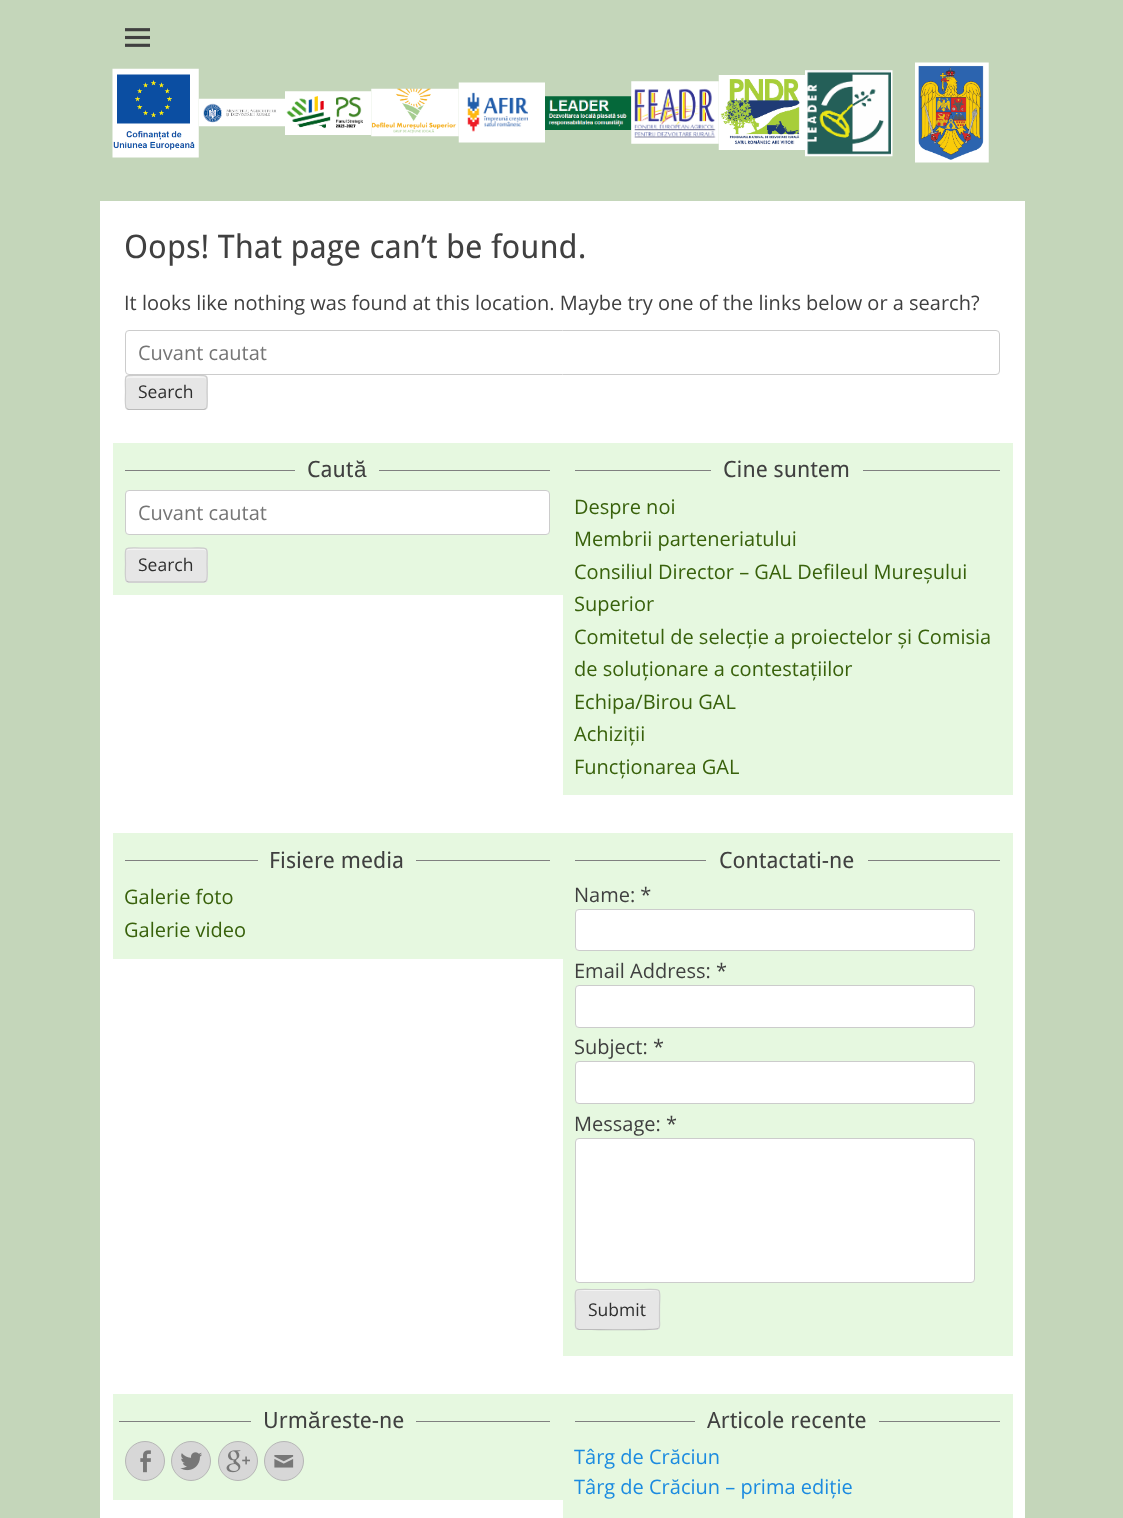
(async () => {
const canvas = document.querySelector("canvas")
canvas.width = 1123
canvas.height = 1518
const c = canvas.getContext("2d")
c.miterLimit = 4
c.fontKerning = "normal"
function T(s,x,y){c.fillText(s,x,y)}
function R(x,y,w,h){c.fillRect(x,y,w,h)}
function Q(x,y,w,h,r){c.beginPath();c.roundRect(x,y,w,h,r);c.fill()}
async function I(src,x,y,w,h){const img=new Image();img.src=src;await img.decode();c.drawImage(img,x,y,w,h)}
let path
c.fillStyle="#c4d6ba"
R(0,0,1123,1518)
await I("1.png",125,28,25,19)
await I("2.png",112,68,87,90)
await I("3.png",198,98,87,29)
await I("4.png",285,91,87,44)
await I("5.png",371,88,88,49)
await I("6.png",458,82,87,61)
await I("7.png",545,96,87,34)
await I("8.png",631,81,88,63)
await I("9.png",718,75,87,75)
await I("10.png",805,70,88,87)
await I("11.png",915,62,74,101)
c.fillStyle="#fff"
R(100,201,925,1317)
c.font="32.5px Droid Sans"
c.fillStyle="#404040"
T("Oops! That page can’t be found.",124,258)
c.font="20px Open Sans"
T("It looks like nothing was found at this location. Maybe try one of the links below or a search?",124,310)
c.beginPath()
c.roundRect(125.5,330.5,874,44,3.5)
c.strokeStyle="#ccc"
c.stroke()
c.fillStyle="#757575"
T("Cuvant cautat",138,360)
c.fillStyle="#e6e6e6"
Q(125,375,83,35,4)
c.fillStyle="#f3f3f3"
path = new Path2D("M129 378h75c1 0 2 1 2 2c0-7-9-4-15-4h-50c-6 0-15-3-15 4c0-1 1-2 3-2z")
c.fill(path)
path = new Path2D("M206 408.5l-2 1h-75.5l-2-1")
c.strokeStyle="#bbb"
c.lineWidth=1.2
c.stroke(path)
path = new Path2D("M126.5 408.5c-2-2-1-13-1-16c0-19.5-3.5-17 15.5-17h50c19.5 0 16-2.5 16 17c0 3 1 14-1 16")
c.strokeStyle="#ccc"
c.stroke(path)
c.font="17.5px Open Sans"
c.fillStyle="#2e2e2e"
T("Search",138,398)
c.fillStyle="#e6f8e0"
R(113,443,450,152)
c.fillStyle="#808080"
R(125,470,425,1)
c.fillStyle="#e6f8e0"
R(295,470,84,1)
c.font="22.5px Droid Sans"
c.fillStyle="#404040"
T("Caut",307,477)
c.font="22.5px Liberation Sans"
T("ă",354,477)
c.fillStyle="#fff"
c.beginPath()
c.roundRect(125.5,490.5,424,44,3.5)
c.fill()
c.lineWidth=1
c.stroke()
c.font="20px Open Sans"
c.fillStyle="#757575"
T("Cuvant cautat",138,520)
c.fillStyle="#e6e6e6"
Q(125,548,83,35,4)
c.fillStyle="#f3f3f3"
path = new Path2D("M129 550h75c1 0 2 1 2 2c0-2-1-3-2-3h-63c-1 0-15-3-15 3c0-1 1-2 3-2z")
c.fill(path)
path = new Path2D("M206 581l-2 1h-75.5l-2-1")
c.strokeStyle="#bbb"
c.lineWidth=1.2
c.stroke(path)
path = new Path2D("M126.5 581c-2-2-1-13-1-16c0-19.5-3.5-17 15.5-17h50c19.5 0 16-2.5 16 17c0 3 1 14-1 16")
c.strokeStyle="#ccc"
c.stroke(path)
c.font="17.5px Open Sans"
c.fillStyle="#2e2e2e"
T("Search",138,571)
c.fillStyle="#e6f8e0"
R(563,443,450,352)
c.fillStyle="#808080"
R(575,470,425,1)
c.fillStyle="#e6f8e0"
R(711,470,152,1)
c.font="22.5px Droid Sans"
c.fillStyle="#404040"
T("Cine suntem",723,477)
c.font="20px Open Sans"
c.fillStyle="#38610b"
T("Despre noi",574,514)
T("Membrii parteneriatului",574,546)
T("Consiliul Director – GAL Defileul Mureșului",574,579)
T("Superior",574,611)
T("Comitetul de selecție a proiectelor și Comisia",574,644)
T("de soluționare a contestațiilor",574,676)
T("Echipa/Birou GAL",574,709)
T("Achiziții",574,741)
T("Funcționarea GAL",574,774)
c.fillStyle="#e6f8e0"
R(113,833,450,126)
c.fillStyle="#808080"
R(125,860,425,1)
c.fillStyle="#e6f8e0"
R(258,860,158,1)
c.font="22.5px Droid Sans"
c.fillStyle="#404040"
T("Fisiere media",269,868)
c.font="20px Open Sans"
c.fillStyle="#38610b"
T("Galerie foto",124,904)
T("Galerie video",124,937)
c.fillStyle="#e6f8e0"
R(563,833,450,523)
c.fillStyle="#808080"
R(575,860,425,1)
c.fillStyle="#e6f8e0"
R(706,860,162,1)
c.font="22.5px Droid Sans"
c.fillStyle="#404040"
T("Contactati-ne",719,868)
c.font="20px Open Sans"
T("Name: *",574,902)
c.fillStyle="#fff"
c.beginPath()
c.roundRect(575.5,909.5,399,41,3.5)
c.fill()
c.lineWidth=1
c.stroke()
c.fillStyle="#404040"
T("Email Address: *",574,978)
c.fillStyle="#fff"
c.beginPath()
c.roundRect(575.5,985.5,399,42,3.5)
c.fill()
c.stroke()
c.fillStyle="#404040"
T("Subject: *",574,1054)
c.fillStyle="#fff"
c.beginPath()
c.roundRect(575.5,1061.5,399,42,3.5)
c.fill()
c.stroke()
c.fillStyle="#404040"
T("Message: *",574,1131)
c.fillStyle="#fff"
c.beginPath()
c.roundRect(575.5,1138.5,399,144,3.5)
c.fill()
c.stroke()
c.fillStyle="#e6e6e6"
Q(575,1289,85,41,4)
c.fillStyle="#f3f3f3"
path = new Path2D("M579 1291h77c2 0 3 1 3 3c0-8-10-4-15-4h-52c-6 0-16-4-16 4c0-2 1-3 3-3z")
c.fill(path)
path = new Path2D("M658.5 1328.5h-.5c-2 2-59 1-66.5 1h-12.5l-2.5-1")
c.strokeStyle="#bbb"
c.lineWidth=1.2
c.stroke(path)
path = new Path2D("M576.5 1328.5c-2-2-1-6.5-1-8v-11c0-22.5-4.5-20 16-20h52c20.5 0 16-2.5 16 20v11c0 1.5 1 6-1 8")
c.strokeStyle="#ccc"
c.stroke(path)
c.font="17.5px Open Sans"
c.fillStyle="#2e2e2e"
T("Submit",588,1316)
c.fillStyle="#e6f8e0"
R(113,1394,450,106)
c.fillStyle="#808080"
R(119,1421,431,1)
c.fillStyle="#e6f8e0"
R(251,1421,165,1)
c.font="22.5px Droid Sans"
c.fillStyle="#404040"
T("Urm",263,1428)
c.font="22.5px Liberation Sans"
T("ă",308,1428)
c.font="22.5px Droid Sans"
T("reste-ne",321,1428)
c.fillStyle="#d7d7d7"
c.beginPath()
c.arc(145,1461,19.5,0,7)
c.fill()
c.strokeStyle="#b6b6b6"
c.lineWidth=1
c.stroke()
await I("12.png",140,1450,11,23)
c.beginPath()
c.arc(191,1461,19.5,0,7)
c.fill()
c.stroke()
await I("13.png",180,1452,22,19)
c.beginPath()
c.arc(238,1461,19.5,0,7)
c.fill()
c.stroke()
await I("14.png",226,1450,24,23)
c.beginPath()
c.arc(284,1461,19.5,0,7)
c.fill()
c.stroke()
await I("15.png",274,1455,20,13)
c.fillStyle="#e6f8e0"
R(563,1394,450,124)
c.fillStyle="#808080"
R(575,1421,425,1)
c.fillStyle="#e6f8e0"
R(695,1421,184,1)
c.fillStyle="#404040"
T("Articole recente",707,1428)
c.font="20px Open Sans"
c.fillStyle="#1b8be0"
T("Târg de Crăciun",574,1464)
T("Târg de Crăciun – prima ediție",574,1494)
})()
